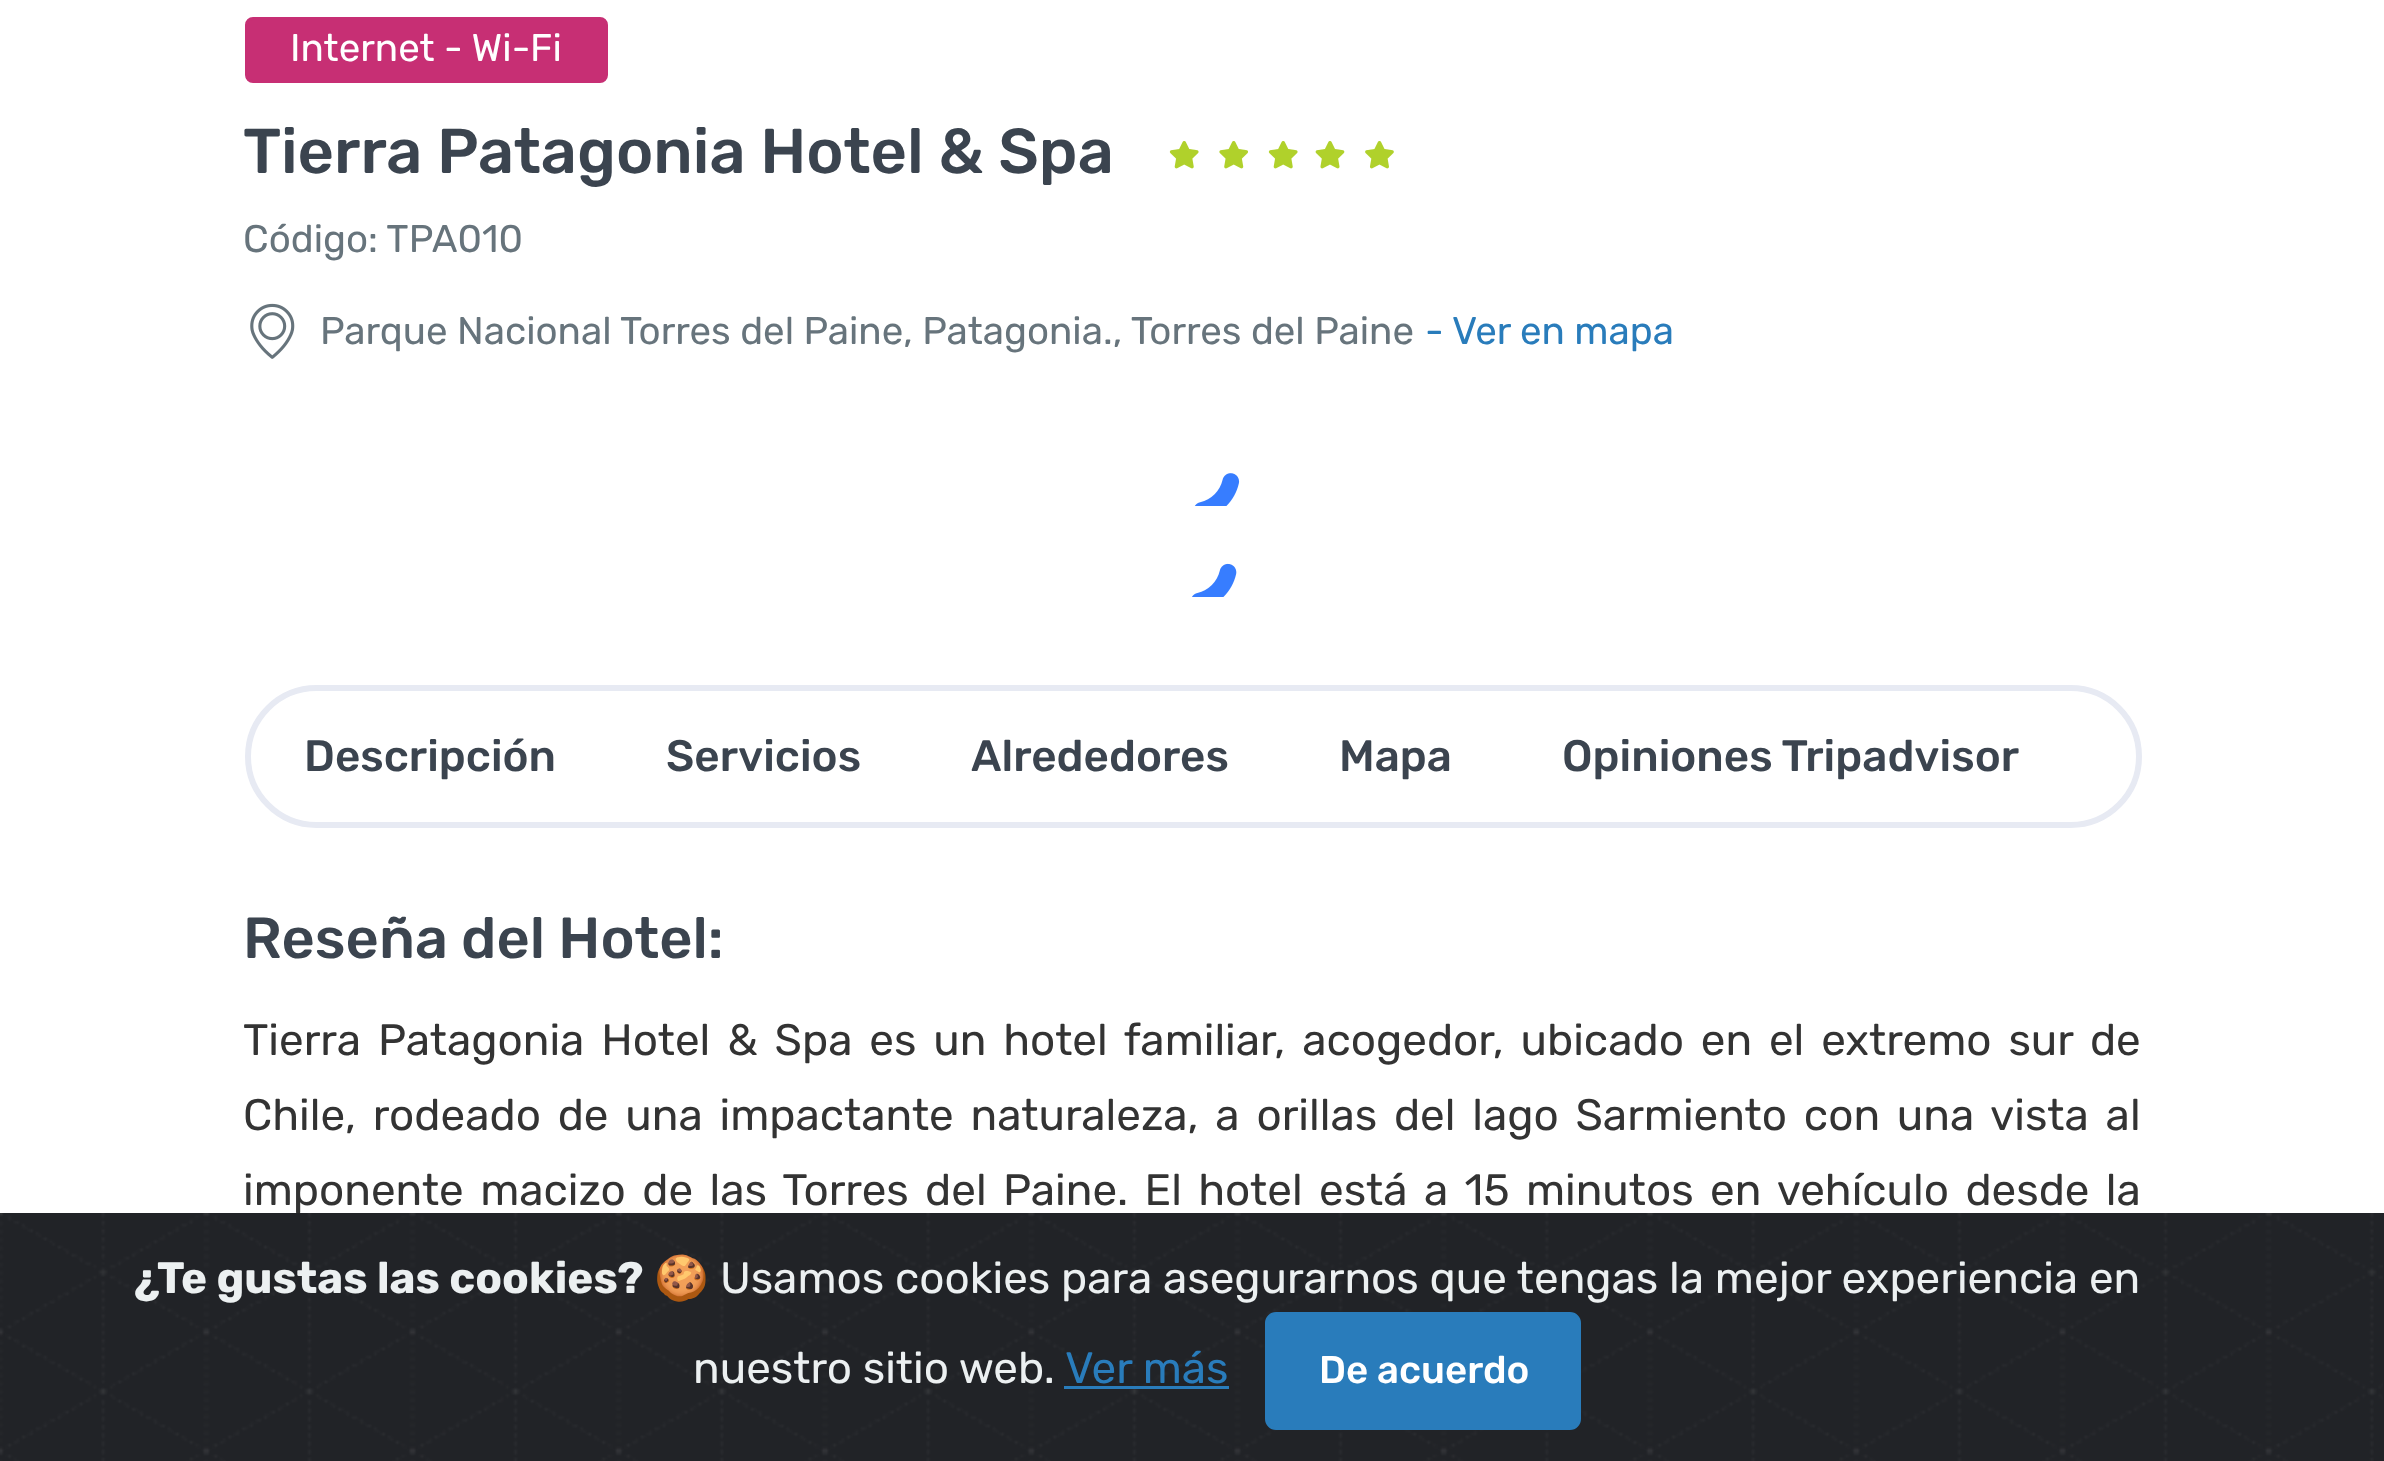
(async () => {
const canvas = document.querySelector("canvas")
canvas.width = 2384
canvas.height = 1461
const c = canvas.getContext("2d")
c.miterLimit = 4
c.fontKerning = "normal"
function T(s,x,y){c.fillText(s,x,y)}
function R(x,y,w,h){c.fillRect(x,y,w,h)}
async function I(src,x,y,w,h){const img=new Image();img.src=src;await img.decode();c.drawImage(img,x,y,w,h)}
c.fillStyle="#fff"
R(0,0,2384,1461)
c.fillStyle="#c72f74"
c.beginPath()
c.roundRect(246.5,18.5,360,63,6.5)
c.fill()
c.strokeStyle="#c72f74"
c.lineWidth=3
c.stroke()
c.font="38.5px Rubik"
c.fillStyle="#fff"
T("Internet - Wi-Fi",290,61)
c.font="500 63.25px Rubik"
c.fillStyle="#3b444f"
T("Tierra Patagonia Hotel & Spa",243,173)
await I("1.png",1169,141,30,28)
await I("2.png",1219,141,29,28)
await I("1.png",1268,141,30,28)
await I("3.png",1315,141,30,28)
await I("4.png",1365,141,29,28)
c.font="38.5px Rubik"
c.fillStyle="#67747c"
T("Código: TPA010",243,252)
await I("5.png",250,303,45,56)
T("Parque Nacional Torres del Paine, Patagonia., Torres del Paine",320,344)
c.fillStyle="#297cbb"
T("- Ver en mapa",1425,344)
await I("6.png",1194,473,46,33)
await I("7.png",1192,563,45,34)
c.beginPath()
c.roundRect(248,688,1891,137,68.5)
c.strokeStyle="#e7eaf3"
c.lineWidth=6
c.stroke()
c.font="500 44px Rubik"
c.fillStyle="#3b444f"
T("Descripción",304,771)
T("Servicios",666,771)
T("Alrededores",971,771)
T("Mapa",1339,771)
T("Opiniones Tripadvisor",1562,771)
c.font="500 57.75px Rubik"
T("Reseña del Hotel:",243,958)
c.wordSpacing="6.1px"
c.font="44px Rubik"
c.fillStyle="#333"
T("Tierra Patagonia Hotel & Spa es un hotel familiar, acogedor, ubicado en el extremo sur de",243,1055)
c.wordSpacing="6px"
T("Chile, rodeado de una impactante naturaleza, a orillas del lago Sarmiento con una vista al",243,1130)
c.wordSpacing="5.6px"
T("imponente macizo de las Torres del Paine. El hotel está a 15 minutos en vehículo desde la",243,1205)
c.fillStyle="#212327"
R(2383,1213,1,248)
await I("8.png",0,1213,2383,248)
c.wordSpacing="0px"
c.font="bold 44px Rubik"
c.fillStyle="#ecf0f1"
T("¿Te gustas las cookies?",134,1293)
c.font="44px Noto Color Emoji"
T("🍪",654,1293)
c.font="44px Rubik"
T("Usamos cookies para asegurarnos que tengas la mejor experiencia en",720,1293)
T("nuestro sitio web.",693,1383)
c.fillStyle="#297cbb"
T("Ver más",1065,1383)
R(1064,1386,165,3)
c.beginPath()
c.roundRect(1266.5,1313.5,313,115,9.5)
c.fill()
c.strokeStyle="#297cbb"
c.lineWidth=3
c.stroke()
c.font="500 38.5px Rubik"
c.fillStyle="#fff"
T("De acuerdo",1319,1383)
})()
